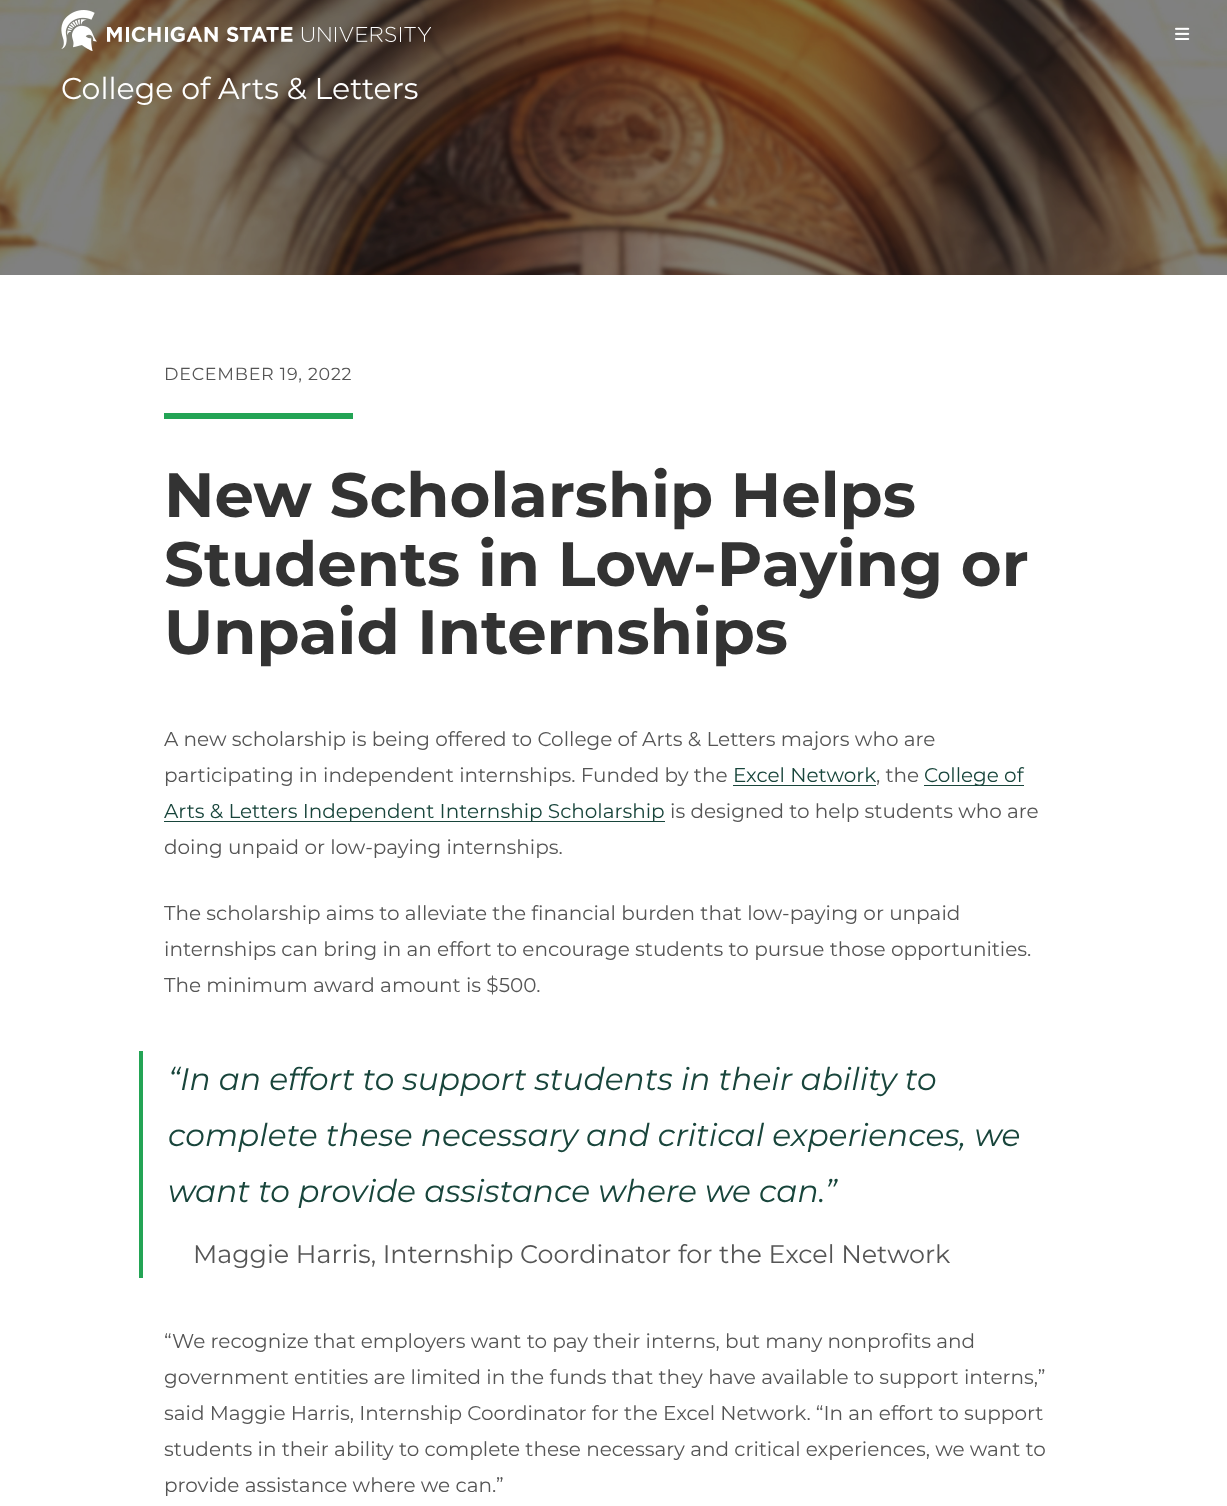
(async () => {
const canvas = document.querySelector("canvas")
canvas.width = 1227
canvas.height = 1506
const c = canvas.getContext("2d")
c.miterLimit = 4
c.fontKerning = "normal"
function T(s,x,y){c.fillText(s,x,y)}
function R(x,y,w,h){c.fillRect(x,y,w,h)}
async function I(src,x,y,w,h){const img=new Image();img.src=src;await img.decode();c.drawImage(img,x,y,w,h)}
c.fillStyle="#fff"
R(0,0,1227,1506)
await I("3.png",0,0,1227,275)
await I("1.png",1175,27,15,13)
await I("2.png",61,10,370,41)
c.font="30px Montserrat"
T("College of Arts & Letters",61,99)
c.fillStyle="#23a455"
R(164,413,189,6)
c.letterSpacing="0.75px"
c.font="17.5px Montserrat"
c.fillStyle="#555"
T("DECEMBER 19, 2022",164,380)
c.letterSpacing="0px"
c.font="bold 62.5px Montserrat"
c.fillStyle="#333"
T("New Scholarship Helps",164,517)
T("Students in Low-Paying or",164,586)
T("Unpaid Internships",164,654)
c.font="20px Montserrat"
c.fillStyle="#555"
T("A new scholarship is being offered to College of Arts & Letters majors who are",164,746)
T("participating in independent internships. Funded by the",164,782)
c.fillStyle="#18453b"
T("Excel Network",733,782)
R(733,785,143,1)
c.fillStyle="#555"
T(", the",876,782)
c.fillStyle="#18453b"
R(924,785,100,1)
T("College of",924,782)
R(164,821,501,1)
T("Arts & Letters Independent Internship Scholarship",164,818)
c.fillStyle="#555"
T("is designed to help students who are",670,818)
T("doing unpaid or low-paying internships.",164,854)
T("The scholarship aims to alleviate the financial burden that low-paying or unpaid",164,920)
T("internships can bring in an effort to encourage students to pursue those opportunities.",164,956)
T("The minimum award amount is $500.",164,992)
c.fillStyle="#23a455"
R(139,1051,4,227)
c.font="italic 31.25px Montserrat"
c.fillStyle="#18453b"
T("“In an effort to support students in their ability to",168,1090)
T("complete these necessary and critical experiences, we",168,1146)
T("want to provide assistance where we can.”",168,1202)
c.font="25.4px Montserrat"
c.fillStyle="#555"
T("Maggie Harris, Internship Coordinator for the Excel Network",193,1263)
c.font="20px Montserrat"
T("“We recognize that employers want to pay their interns, but many nonprofits and",164,1348)
T("government entities are limited in the funds that they have available to support interns,”",164,1384)
T("said Maggie Harris, Internship Coordinator for the Excel Network. “In an effort to support",164,1420)
T("students in their ability to complete these necessary and critical experiences, we want to",164,1456)
T("provide assistance where we can.”",164,1492)
})()
